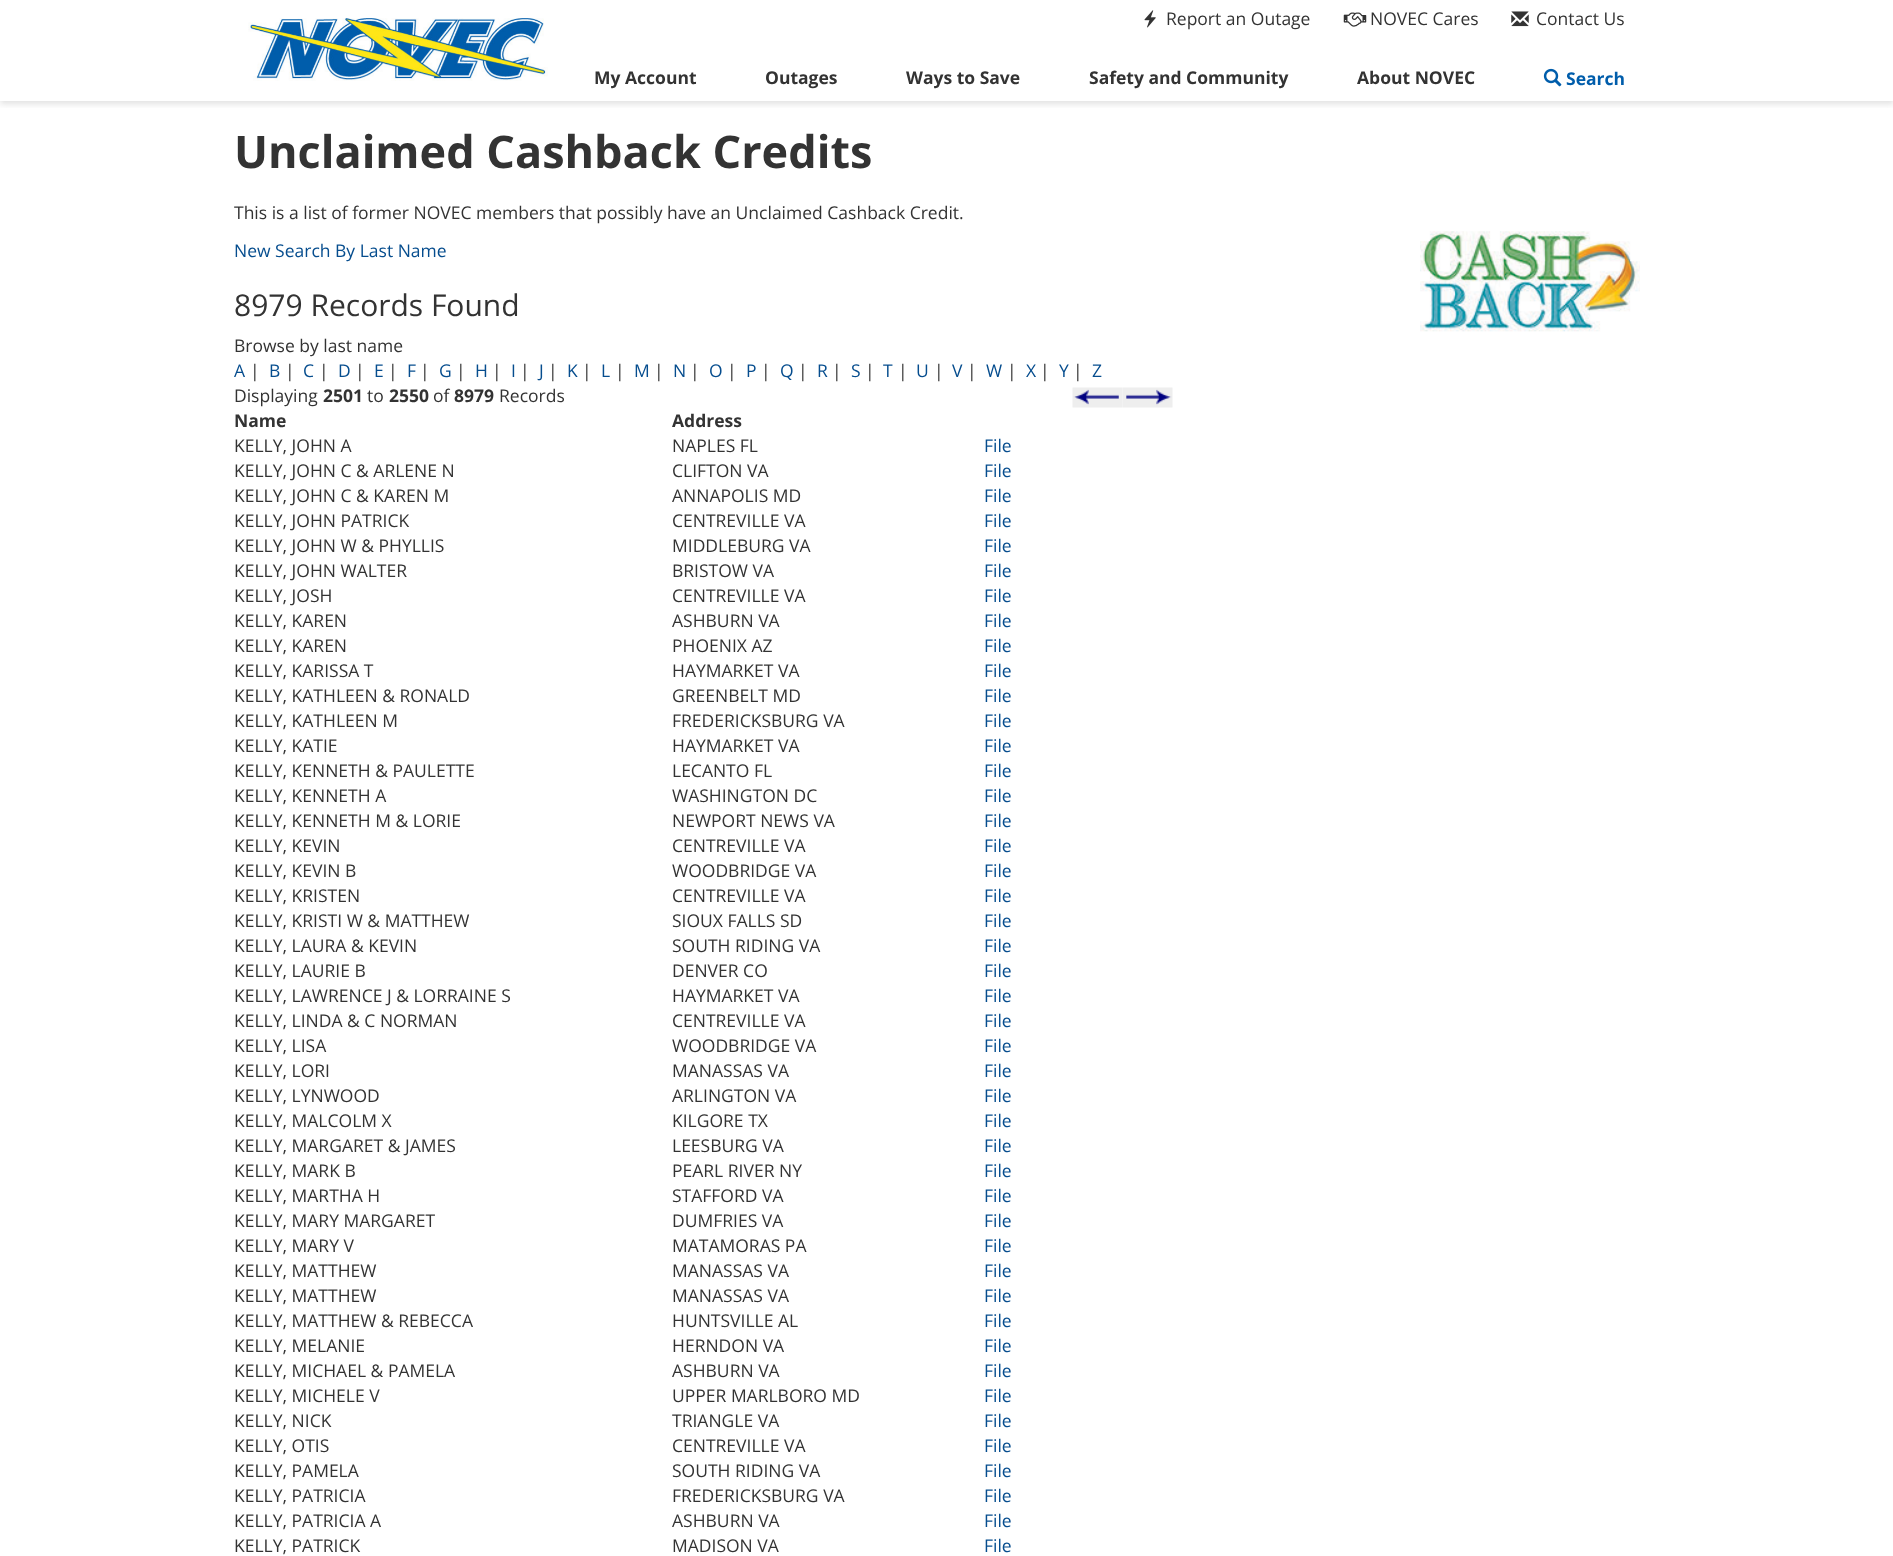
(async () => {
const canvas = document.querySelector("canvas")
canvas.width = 1893
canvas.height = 1556
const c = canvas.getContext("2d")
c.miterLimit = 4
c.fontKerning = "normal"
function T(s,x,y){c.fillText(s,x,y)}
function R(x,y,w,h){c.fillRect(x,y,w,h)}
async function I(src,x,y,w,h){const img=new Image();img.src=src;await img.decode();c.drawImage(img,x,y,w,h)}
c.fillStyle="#fff"
R(0,0,1893,1556)
c.save()
c.beginPath()
c.rect(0,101,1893,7)
c.clip()
c.fillStyle="#9b9b9b4d"
c.filter="blur(3px)"
c.beginPath()
c.rect(0,3,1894,101)
c.fill()
c.filter="none"
c.restore()
await I("1.png",248,18,300,63)
await I("2.png",1144,10,12,18)
c.font="17.5px Open Sans"
c.fillStyle="#333"
T("Report an Outage",1166,25)
await I("3.png",1343,12,24,15)
T("NOVEC Cares",1370,25)
await I("4.png",1511,11,18,16)
T("Contact Us",1536,25)
c.font="bold 17.5px Open Sans"
T("My Account",594,84)
T("Outages",765,84)
T("Ways to Save",906,84)
T("Safety and Community",1089,84)
T("About NOVEC",1357,84)
await I("5.png",1543,68,19,19)
c.fillStyle="#005dab"
T("Search",1566,85)
c.font="bold 45px Open Sans"
c.fillStyle="#333"
T("Unclaimed Cashback Credits",234,168)
c.font="17.5px Open Sans"
T("This is a list of former NOVEC members that possibly have an Unclaimed Cashback Credit.",234,219)
c.fillStyle="#064d8e"
T("New Search By Last Name",234,257)
c.font="30px Open Sans"
c.fillStyle="#333"
T("8979 Records Found",234,316)
c.font="17.5px Open Sans"
T("Browse by last name",234,352)
c.fillStyle="#064d8e"
T("A",234,377)
c.fillStyle="#333"
T("|",250,377)
c.fillStyle="#064d8e"
T("B",269,377)
c.fillStyle="#333"
T("|",285,377)
c.fillStyle="#064d8e"
T("C",303,377)
c.fillStyle="#333"
T("|",319,377)
c.fillStyle="#064d8e"
T("D",338,377)
c.fillStyle="#333"
T("|",355,377)
c.fillStyle="#064d8e"
T("E",374,377)
c.fillStyle="#333"
T("|",388,377)
c.fillStyle="#064d8e"
T("F",407,377)
c.fillStyle="#333"
T("|",420,377)
c.fillStyle="#064d8e"
T("G",439,377)
c.fillStyle="#333"
T("|",456,377)
c.fillStyle="#064d8e"
T("H",475,377)
c.fillStyle="#333"
T("|",492,377)
c.fillStyle="#064d8e"
T("I",511,377)
c.fillStyle="#333"
T("|",520,377)
c.fillStyle="#064d8e"
T("J",539,377)
c.fillStyle="#333"
T("|",548,377)
c.fillStyle="#064d8e"
T("K",567,377)
c.fillStyle="#333"
T("|",582,377)
c.fillStyle="#064d8e"
T("L",601,377)
c.fillStyle="#333"
T("|",615,377)
c.fillStyle="#064d8e"
T("M",634,377)
c.fillStyle="#333"
T("|",654,377)
c.fillStyle="#064d8e"
T("N",673,377)
c.fillStyle="#333"
T("|",690,377)
c.fillStyle="#064d8e"
T("O",709,377)
c.fillStyle="#333"
T("|",727,377)
c.fillStyle="#064d8e"
T("P",746,377)
c.fillStyle="#333"
T("|",761,377)
c.fillStyle="#064d8e"
T("Q",780,377)
c.fillStyle="#333"
T("|",798,377)
c.fillStyle="#064d8e"
T("R",817,377)
c.fillStyle="#333"
T("|",832,377)
c.fillStyle="#064d8e"
T("S",851,377)
c.fillStyle="#333"
T("|",865,377)
c.fillStyle="#064d8e"
T("T",883,377)
c.fillStyle="#333"
T("|",898,377)
c.fillStyle="#064d8e"
T("U",916,377)
c.fillStyle="#333"
T("|",934,377)
c.fillStyle="#064d8e"
T("V",952,377)
c.fillStyle="#333"
T("|",967,377)
c.fillStyle="#064d8e"
T("W",986,377)
c.fillStyle="#333"
T("|",1007,377)
c.fillStyle="#064d8e"
T("X",1026,377)
c.fillStyle="#333"
T("|",1040,377)
c.fillStyle="#064d8e"
T("Y",1059,377)
c.fillStyle="#333"
T("|",1073,377)
c.fillStyle="#064d8e"
T("Z",1092,377)
c.fillStyle="#333"
T("Displaying",234,402)
c.font="bold 17.5px Open Sans"
T("2501",323,402)
c.font="17.5px Open Sans"
T("to",367,402)
c.font="bold 17.5px Open Sans"
T("2550",389,402)
c.font="17.5px Open Sans"
T("of",433,402)
c.font="bold 17.5px Open Sans"
T("8979",454,402)
c.font="17.5px Open Sans"
T("Records",499,402)
await I("6.png",1072,387,51,21)
await I("7.png",1122,387,51,21)
c.font="bold 17.5px Open Sans"
T("Name",234,427)
T("Address",672,427)
c.font="17.5px Open Sans"
T("KELLY, JOHN A",234,452)
T("NAPLES FL",672,452)
c.fillStyle="#064d8e"
T("File",984,452)
c.fillStyle="#333"
T("KELLY, JOHN C & ARLENE N",234,477)
T("CLIFTON VA",672,477)
c.fillStyle="#064d8e"
T("File",984,477)
c.fillStyle="#333"
T("KELLY, JOHN C & KAREN M",234,502)
T("ANNAPOLIS MD",672,502)
c.fillStyle="#064d8e"
T("File",984,502)
c.fillStyle="#333"
T("KELLY, JOHN PATRICK",234,527)
T("CENTREVILLE VA",672,527)
c.fillStyle="#064d8e"
T("File",984,527)
c.fillStyle="#333"
T("KELLY, JOHN W & PHYLLIS",234,552)
T("MIDDLEBURG VA",672,552)
c.fillStyle="#064d8e"
T("File",984,552)
c.fillStyle="#333"
T("KELLY, JOHN WALTER",234,577)
T("BRISTOW VA",672,577)
c.fillStyle="#064d8e"
T("File",984,577)
c.fillStyle="#333"
T("KELLY, JOSH",234,602)
T("CENTREVILLE VA",672,602)
c.fillStyle="#064d8e"
T("File",984,602)
c.fillStyle="#333"
T("KELLY, KAREN",234,627)
T("ASHBURN VA",672,627)
c.fillStyle="#064d8e"
T("File",984,627)
c.fillStyle="#333"
T("KELLY, KAREN",234,652)
T("PHOENIX AZ",672,652)
c.fillStyle="#064d8e"
T("File",984,652)
c.fillStyle="#333"
T("KELLY, KARISSA T",234,677)
T("HAYMARKET VA",672,677)
c.fillStyle="#064d8e"
T("File",984,677)
c.fillStyle="#333"
T("KELLY, KATHLEEN & RONALD",234,702)
T("GREENBELT MD",672,702)
c.fillStyle="#064d8e"
T("File",984,702)
c.fillStyle="#333"
T("KELLY, KATHLEEN M",234,727)
T("FREDERICKSBURG VA",672,727)
c.fillStyle="#064d8e"
T("File",984,727)
c.fillStyle="#333"
T("KELLY, KATIE",234,752)
T("HAYMARKET VA",672,752)
c.fillStyle="#064d8e"
T("File",984,752)
c.fillStyle="#333"
T("KELLY, KENNETH & PAULETTE",234,777)
T("LECANTO FL",672,777)
c.fillStyle="#064d8e"
T("File",984,777)
c.fillStyle="#333"
T("KELLY, KENNETH A",234,802)
T("WASHINGTON DC",672,802)
c.fillStyle="#064d8e"
T("File",984,802)
c.fillStyle="#333"
T("KELLY, KENNETH M & LORIE",234,827)
T("NEWPORT NEWS VA",672,827)
c.fillStyle="#064d8e"
T("File",984,827)
c.fillStyle="#333"
T("KELLY, KEVIN",234,852)
T("CENTREVILLE VA",672,852)
c.fillStyle="#064d8e"
T("File",984,852)
c.fillStyle="#333"
T("KELLY, KEVIN B",234,877)
T("WOODBRIDGE VA",672,877)
c.fillStyle="#064d8e"
T("File",984,877)
c.fillStyle="#333"
T("KELLY, KRISTEN",234,902)
T("CENTREVILLE VA",672,902)
c.fillStyle="#064d8e"
T("File",984,902)
c.fillStyle="#333"
T("KELLY, KRISTI W & MATTHEW",234,927)
T("SIOUX FALLS SD",672,927)
c.fillStyle="#064d8e"
T("File",984,927)
c.fillStyle="#333"
T("KELLY, LAURA & KEVIN",234,952)
T("SOUTH RIDING VA",672,952)
c.fillStyle="#064d8e"
T("File",984,952)
c.fillStyle="#333"
T("KELLY, LAURIE B",234,977)
T("DENVER CO",672,977)
c.fillStyle="#064d8e"
T("File",984,977)
c.fillStyle="#333"
T("KELLY, LAWRENCE J & LORRAINE S",234,1002)
T("HAYMARKET VA",672,1002)
c.fillStyle="#064d8e"
T("File",984,1002)
c.fillStyle="#333"
T("KELLY, LINDA & C NORMAN",234,1027)
T("CENTREVILLE VA",672,1027)
c.fillStyle="#064d8e"
T("File",984,1027)
c.fillStyle="#333"
T("KELLY, LISA",234,1052)
T("WOODBRIDGE VA",672,1052)
c.fillStyle="#064d8e"
T("File",984,1052)
c.fillStyle="#333"
T("KELLY, LORI",234,1077)
T("MANASSAS VA",672,1077)
c.fillStyle="#064d8e"
T("File",984,1077)
c.fillStyle="#333"
T("KELLY, LYNWOOD",234,1102)
T("ARLINGTON VA",672,1102)
c.fillStyle="#064d8e"
T("File",984,1102)
c.fillStyle="#333"
T("KELLY, MALCOLM X",234,1127)
T("KILGORE TX",672,1127)
c.fillStyle="#064d8e"
T("File",984,1127)
c.fillStyle="#333"
T("KELLY, MARGARET & JAMES",234,1152)
T("LEESBURG VA",672,1152)
c.fillStyle="#064d8e"
T("File",984,1152)
c.fillStyle="#333"
T("KELLY, MARK B",234,1177)
T("PEARL RIVER NY",672,1177)
c.fillStyle="#064d8e"
T("File",984,1177)
c.fillStyle="#333"
T("KELLY, MARTHA H",234,1202)
T("STAFFORD VA",672,1202)
c.fillStyle="#064d8e"
T("File",984,1202)
c.fillStyle="#333"
T("KELLY, MARY MARGARET",234,1227)
T("DUMFRIES VA",672,1227)
c.fillStyle="#064d8e"
T("File",984,1227)
c.fillStyle="#333"
T("KELLY, MARY V",234,1252)
T("MATAMORAS PA",672,1252)
c.fillStyle="#064d8e"
T("File",984,1252)
c.fillStyle="#333"
T("KELLY, MATTHEW",234,1277)
T("MANASSAS VA",672,1277)
c.fillStyle="#064d8e"
T("File",984,1277)
c.fillStyle="#333"
T("KELLY, MATTHEW",234,1302)
T("MANASSAS VA",672,1302)
c.fillStyle="#064d8e"
T("File",984,1302)
c.fillStyle="#333"
T("KELLY, MATTHEW & REBECCA",234,1327)
T("HUNTSVILLE AL",672,1327)
c.fillStyle="#064d8e"
T("File",984,1327)
c.fillStyle="#333"
T("KELLY, MELANIE",234,1352)
T("HERNDON VA",672,1352)
c.fillStyle="#064d8e"
T("File",984,1352)
c.fillStyle="#333"
T("KELLY, MICHAEL & PAMELA",234,1377)
T("ASHBURN VA",672,1377)
c.fillStyle="#064d8e"
T("File",984,1377)
c.fillStyle="#333"
T("KELLY, MICHELE V",234,1402)
T("UPPER MARLBORO MD",672,1402)
c.fillStyle="#064d8e"
T("File",984,1402)
c.fillStyle="#333"
T("KELLY, NICK",234,1427)
T("TRIANGLE VA",672,1427)
c.fillStyle="#064d8e"
T("File",984,1427)
c.fillStyle="#333"
T("KELLY, OTIS",234,1452)
T("CENTREVILLE VA",672,1452)
c.fillStyle="#064d8e"
T("File",984,1452)
c.fillStyle="#333"
T("KELLY, PAMELA",234,1477)
T("SOUTH RIDING VA",672,1477)
c.fillStyle="#064d8e"
T("File",984,1477)
c.fillStyle="#333"
T("KELLY, PATRICIA",234,1502)
T("FREDERICKSBURG VA",672,1502)
c.fillStyle="#064d8e"
T("File",984,1502)
c.fillStyle="#333"
T("KELLY, PATRICIA A",234,1527)
T("ASHBURN VA",672,1527)
c.fillStyle="#064d8e"
T("File",984,1527)
c.fillStyle="#333"
T("KELLY, PATRICK",234,1552)
T("MADISON VA",672,1552)
c.fillStyle="#064d8e"
T("File",984,1552)
await I("8.png",1420,231,220,101)
})()
